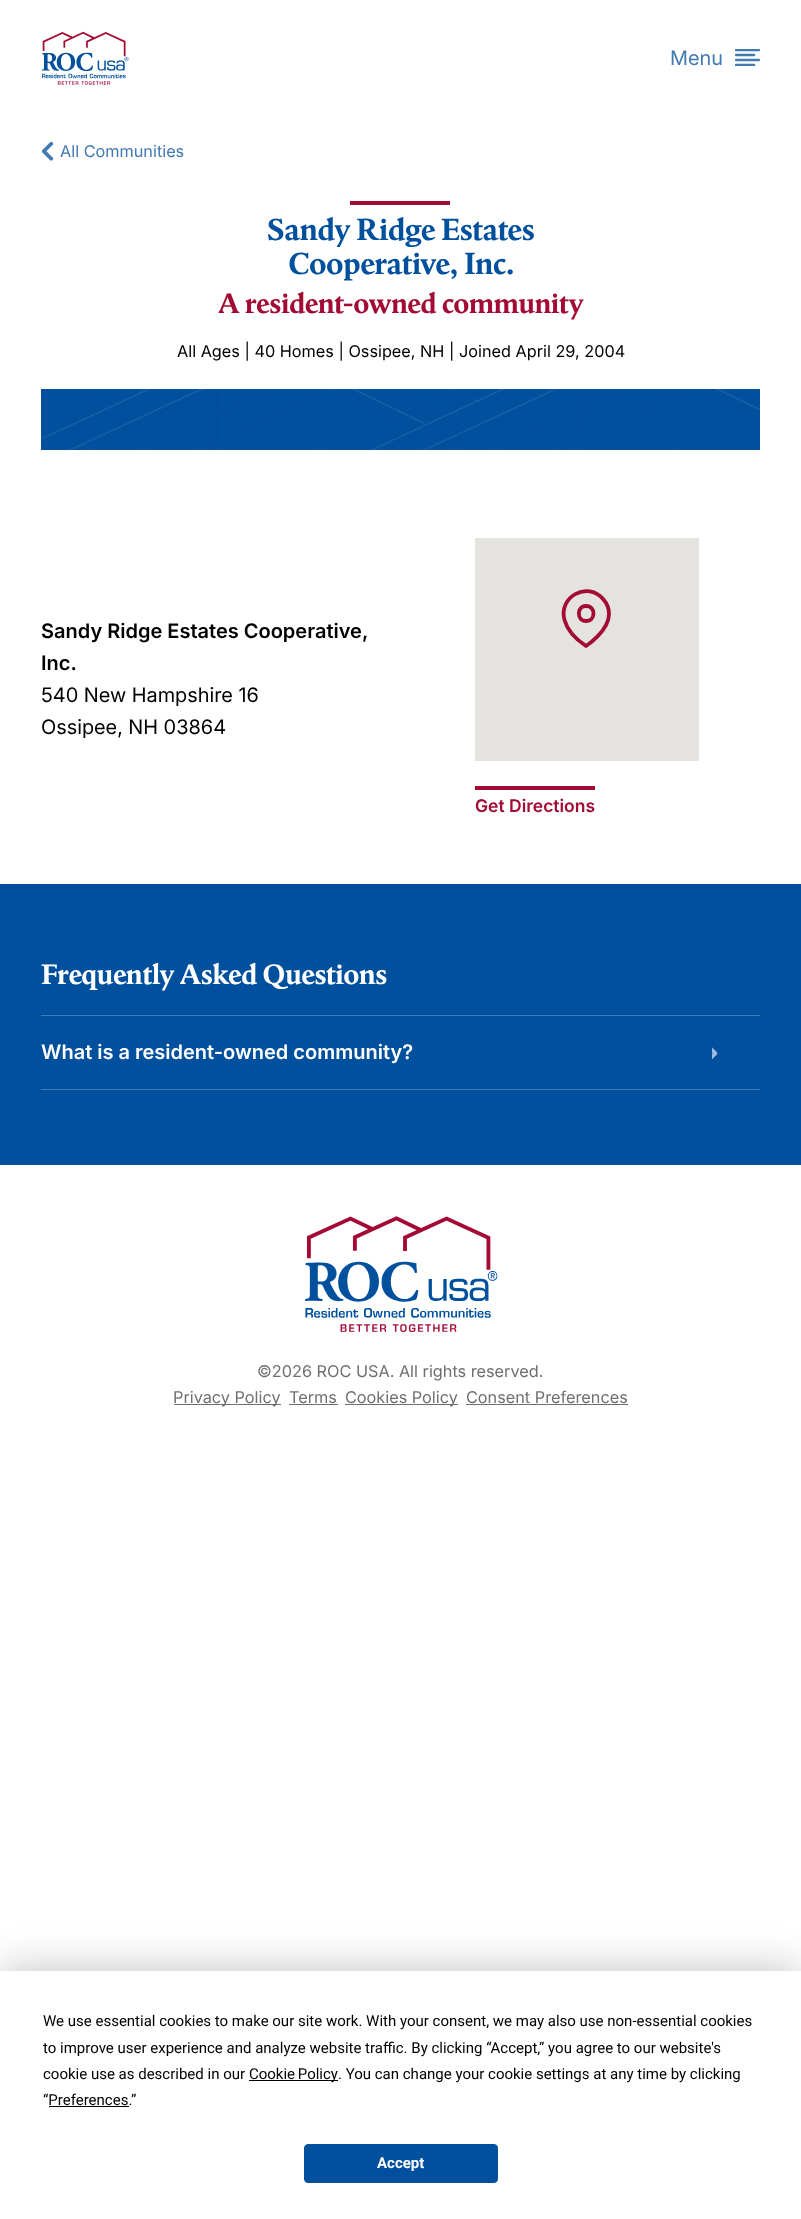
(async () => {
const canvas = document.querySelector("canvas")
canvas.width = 801
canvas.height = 2219
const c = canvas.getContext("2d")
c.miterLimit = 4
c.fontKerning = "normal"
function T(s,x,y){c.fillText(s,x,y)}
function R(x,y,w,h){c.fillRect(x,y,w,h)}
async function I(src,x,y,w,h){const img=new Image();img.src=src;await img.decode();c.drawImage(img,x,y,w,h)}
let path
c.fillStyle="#fff"
R(0,0,801,2219)
await I("1.png",41,31,88,54)
c.font="20px 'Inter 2'"
c.fillStyle="#427ab1"
T("Menu",670,65)
c.save()
c.beginPath()
c.rect(735,49,25,17)
c.clip()
path = new Path2D("M754 55h-18m23-5h-23m23 10h-23m18 5h-18")
c.strokeStyle="#427ab1"
c.lineWidth=2.5
c.lineCap="round"
c.lineJoin="round"
c.stroke(path)
c.restore()
await I("2.png",41,141,13,20)
c.font="16.25px Inter"
T("All Communities",60,157)
c.fillStyle="#a30b35"
R(350,201,100,4)
c.letterSpacing="-0.6px"
c.font="bold 31.25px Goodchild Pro"
c.fillStyle="#00509e"
T("Sandy Ridge Estates",267,240)
T("Cooperative, Inc.",288,274)
c.font="bold 28.75px Goodchild Pro"
c.fillStyle="#a30b35"
T("A resident-owned community",218,313)
c.letterSpacing="0px"
c.font="16.25px Inter"
c.fillStyle="#000"
T("All Ages | 40 Homes | Ossipee, NH | Joined April 29, 2004",177,357)
c.fillStyle="#00509e"
R(41,389,719,61)
await I("3.png",41,389,719,61)
c.font="600 20px Inter"
c.fillStyle="#000"
T("Sandy Ridge Estates Cooperative,",41,638)
T("Inc.",41,670)
c.font="20px 'Inter 2'"
T("540 New Hampshire 16",41,702)
T("Ossipee, NH 03864",41,734)
c.fillStyle="#e5e3df"
R(475,538,224,223)
path = new Path2D("M609 614c0 17-23 32-23 32c-9-6-18.5-15-21.5-26c-6.5-23.5 23.5-39.5 39-20.5c3.5 4 5.5 9 5.5 14.5zm-23 7c10 0 10-15 0-15c-9.5 0-9.5 15 0 15z")
c.strokeStyle="#a30b35"
c.lineWidth=3.8
c.lineCap="round"
c.lineJoin="round"
c.stroke(path)
c.fillStyle="#a30b35"
R(475,786,120,4)
c.font="600 17.5px Inter"
T("Get Directions",475,812)
c.fillStyle="#00509e"
R(0,884,801,281)
c.letterSpacing="-0.6px"
c.font="bold 28.75px Goodchild Pro"
c.fillStyle="#fff"
T("Frequently Asked Questions",41,984)
c.fillStyle="#427ab1"
R(41,1015,719,1)
R(41,1089,719,1)
c.letterSpacing="0px"
c.font="600 20px Inter"
c.fillStyle="#fff"
T("What is a resident-owned community?",41,1059)
await I("4.png",711,1047,7,12)
await I("5.png",305,1216,193,116)
c.font="16.25px Inter"
c.fillStyle="#707070"
T("©2026 ROC USA. All rights reserved.",257,1377)
R(174,1404,107,1)
T("Privacy Policy",173,1403)
T("Terms",289,1403)
R(289,1404,49,1)
R(345,1404,113,1)
T("Cookies Policy",345,1403)
T("Consent Preferences",466,1403)
R(466,1404,162,1)
c.fillStyle="#00000040"
c.filter="blur(22px)"
c.beginPath()
c.rect(0,1971,801,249)
c.fill()
c.filter="none"
c.fillStyle="#fff"
R(0,1971,801,248)
c.font="15px Roboto"
c.fillStyle="#000"
T("We use essential cookies to make our site work. With your consent, we may also use non-essential cookies",43,2026)
T("to improve user experience and analyze website traffic. By clicking “Accept,” you agree to our website's",43,2053)
T("cookie use as described in our",43,2079)
R(249,2080,89,1)
c.wordSpacing="-1px"
T("Cookie Policy",249,2079)
c.wordSpacing="0px"
T(". You can change your cookie settings at any time by clicking",338,2079)
T("“Preferences.”",43,2105)
R(49,2106,80,1)
c.fillStyle="#00509e"
c.beginPath()
c.roundRect(304.5,2144.5,193,38,3.5)
c.fill()
c.strokeStyle="#00509e"
c.lineWidth=1
c.lineJoin="miter"
c.stroke()
c.font="bold 15px Roboto"
c.fillStyle="#fff"
T("Accept",377,2168)
})()
